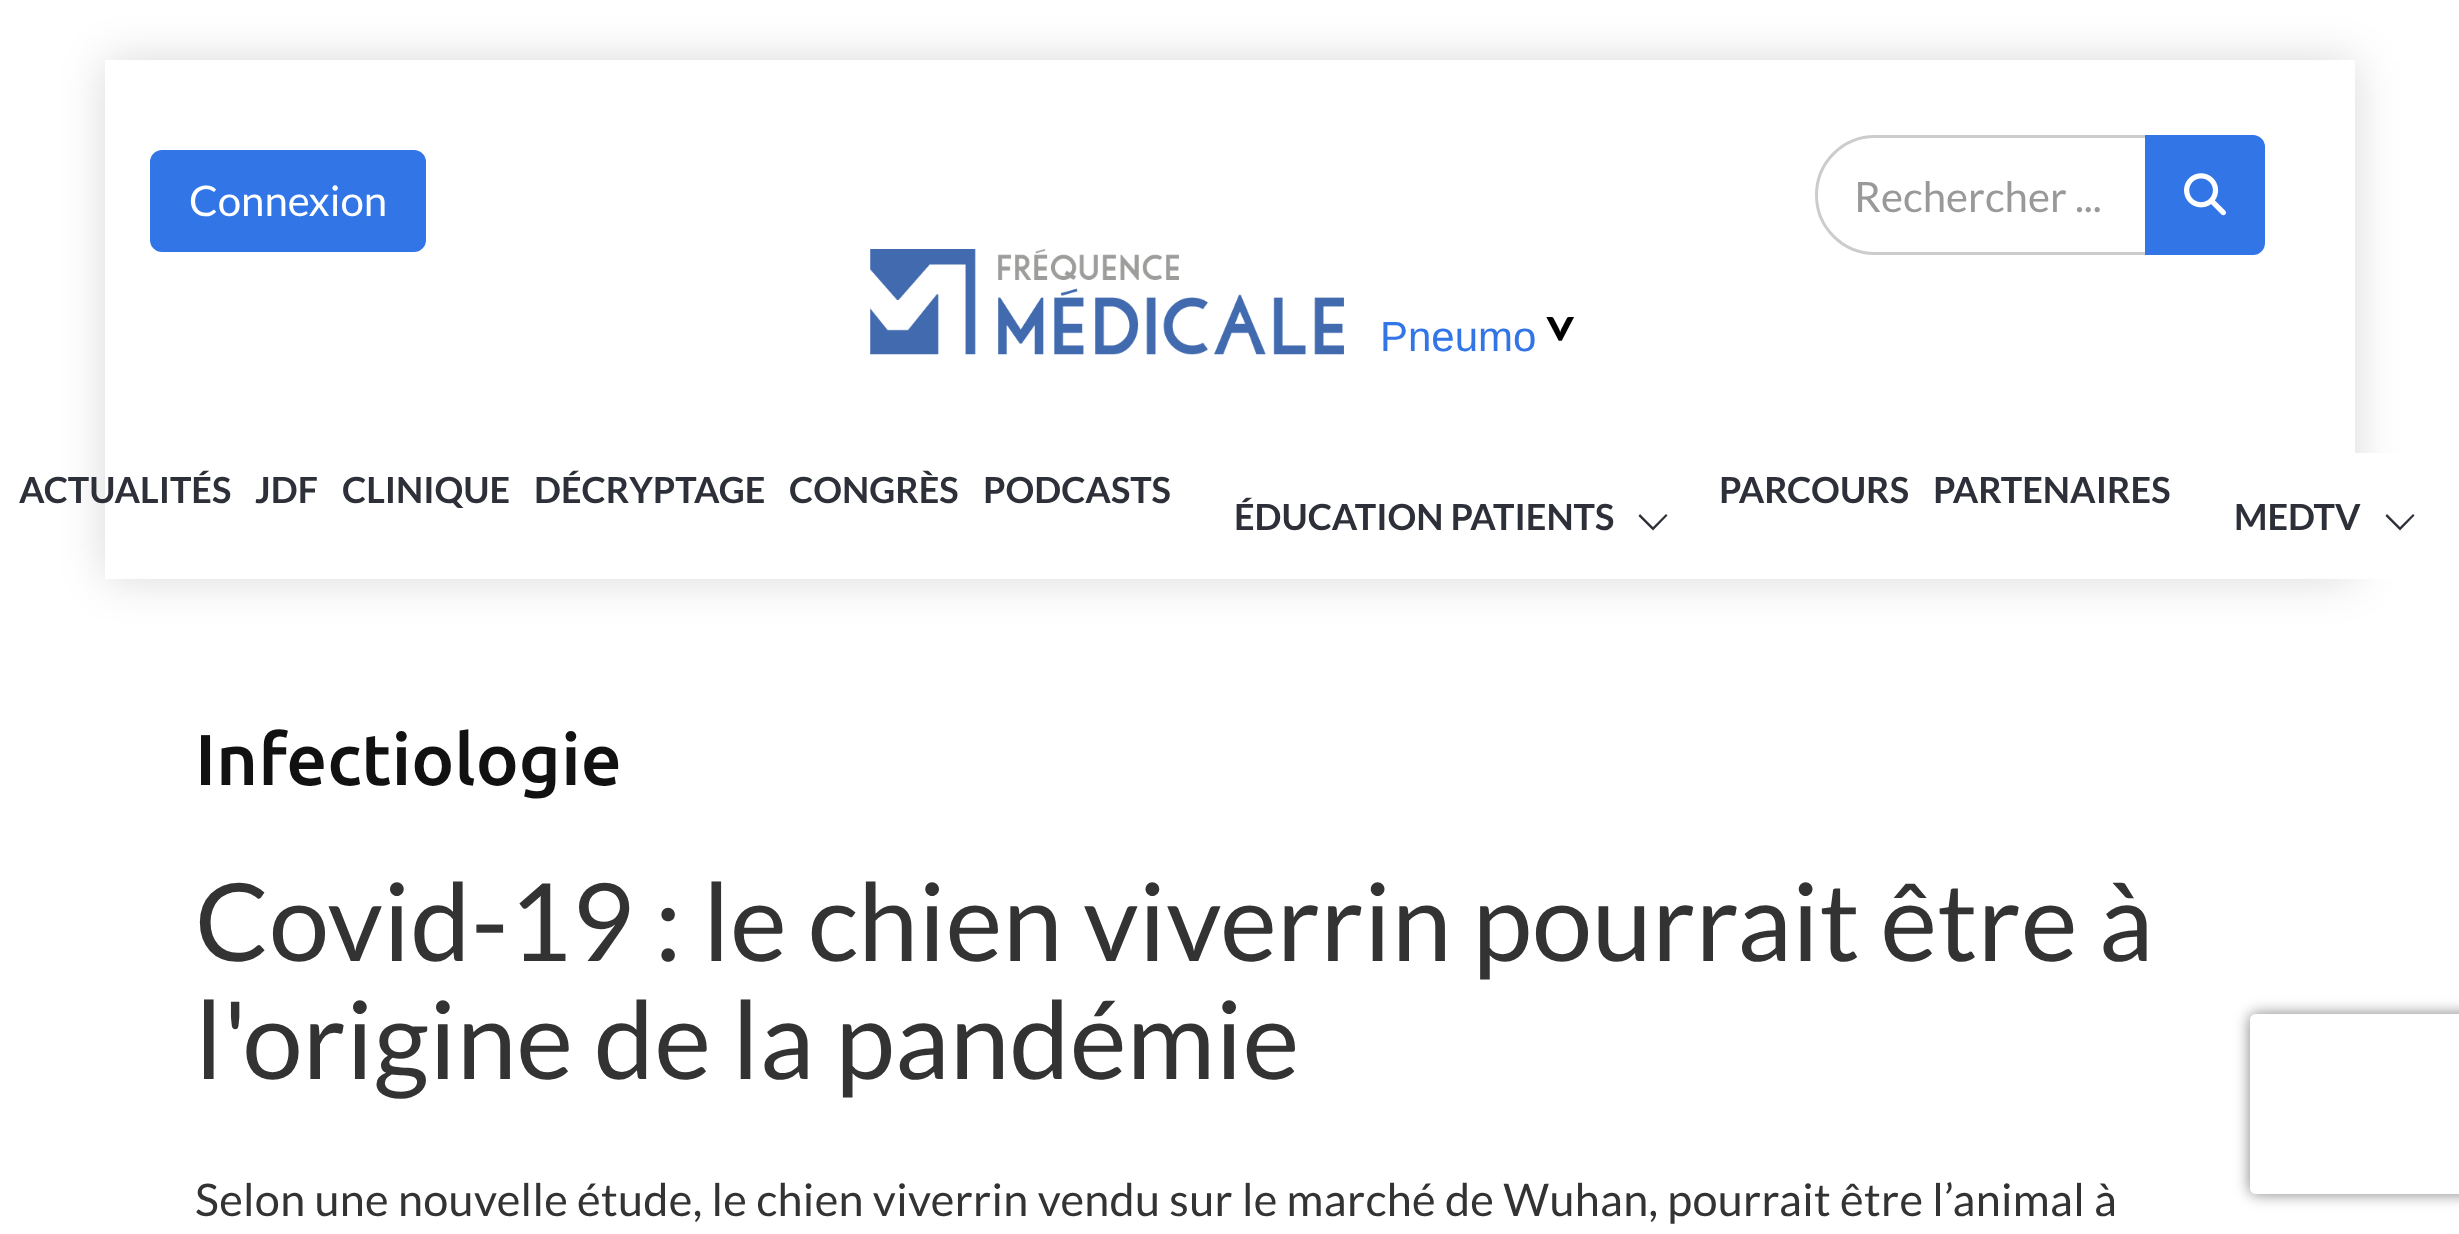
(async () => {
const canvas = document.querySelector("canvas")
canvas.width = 2459
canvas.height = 1234
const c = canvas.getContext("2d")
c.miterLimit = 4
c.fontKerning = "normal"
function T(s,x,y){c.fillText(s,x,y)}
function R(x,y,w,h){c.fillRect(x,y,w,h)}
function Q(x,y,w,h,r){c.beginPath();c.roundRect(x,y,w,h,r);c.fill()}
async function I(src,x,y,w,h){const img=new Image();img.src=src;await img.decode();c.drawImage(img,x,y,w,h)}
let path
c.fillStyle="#fff"
R(0,0,2459,1234)
c.save()
path = new Path2D("M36 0h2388v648h-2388zm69 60h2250v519h-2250z")
c.clip(path,"evenodd")
c.fillStyle="#00000026"
c.filter="blur(22.5px)"
c.beginPath()
c.rect(105,60,2250,519)
c.fill()
c.filter="none"
c.restore()
c.fillStyle="#3175e6"
c.beginPath()
c.roundRect(151.5,151.5,273,99,10.5)
c.fill()
c.strokeStyle="#3175e6"
c.lineWidth=3
c.stroke()
c.font="42px Lato"
c.fillStyle="#fff"
T("Connexion",189,216)
c.beginPath()
c.roundRect(1816.5,136.5,330,117,[58.5,0,0,58.5])
c.strokeStyle="#ccc"
c.stroke()
c.fillStyle="#999"
T("Rechercher ...",1854,212)
c.fillStyle="#3175e6"
c.beginPath()
c.roundRect(2146.5,136.5,117,117,[0,10.5,10.5,0])
c.fill()
c.strokeStyle="#3175e6"
c.stroke()
await I("1.png",2184,173,42,43)
await I("2.png",870,249,474,106)
c.font="42px Liberation Sans"
T("Pneumo",1380,351)
c.font="bold 60px Lato"
c.fillStyle="#000"
c.save()
c.translate(1540,310)
c.rotate(90 * Math.PI / 180)
c.fillText(">",0,0)
c.restore()
c.font="bold 36px Lato"
c.fillStyle="#2d3038"
T("ACTUALITÉS",19,503)
T("JDF",255,503)
T("CLINIQUE",342,503)
T("DÉCRYPTAGE",534,503)
T("CONGRÈS",789,503)
T("PODCASTS",983,503)
T("PARCOURS",1719,503)
T("PARTENAIRES",1933,503)
T("ÉDUCATION PATIENTS",1234,530)
path = new Path2D("M1651 528.5l2 2l14.5-15l-1.5-1.5l-13 13l-13-13l-1.5 2z")
c.fill(path)
c.fillStyle="#fff"
Q(2184,453,270,126,12)
c.fillStyle="#2d3038"
T("MEDTV",2234,530)
path = new Path2D("M2398 528.5l2 2l14.5-15l-1.5-1.5l-13 13l-13-13l-1.5 2z")
c.fill(path)
c.font="500 72px Ubuntu"
c.fillStyle="#111"
T("Infectiologie",195,785)
c.font="108px Lato"
c.fillStyle="#333"
T("Covid-19 : le chien viverrin pourrait être à",195,961)
T("l'origine de la pandémie",195,1079)
c.letterSpacing="0.3px"
c.font="45px Lato"
T("Selon une nouvelle étude, le chien viverrin vendu sur le marché de Wuhan, pourrait être l’animal à",195,1216)
c.save()
path = new Path2D("M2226 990h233v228h-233zm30 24h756c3.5 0 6 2.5 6 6v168c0 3.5-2.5 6-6 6h-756c-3.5 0-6-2.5-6-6v-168c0-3.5 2.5-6 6-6z")
c.clip(path,"evenodd")
c.fillStyle="#808080"
c.filter="blur(7.5px)"
c.beginPath()
c.roundRect(2250,1014,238,180,6)
c.fill()
c.filter="none"
c.restore()
})()
